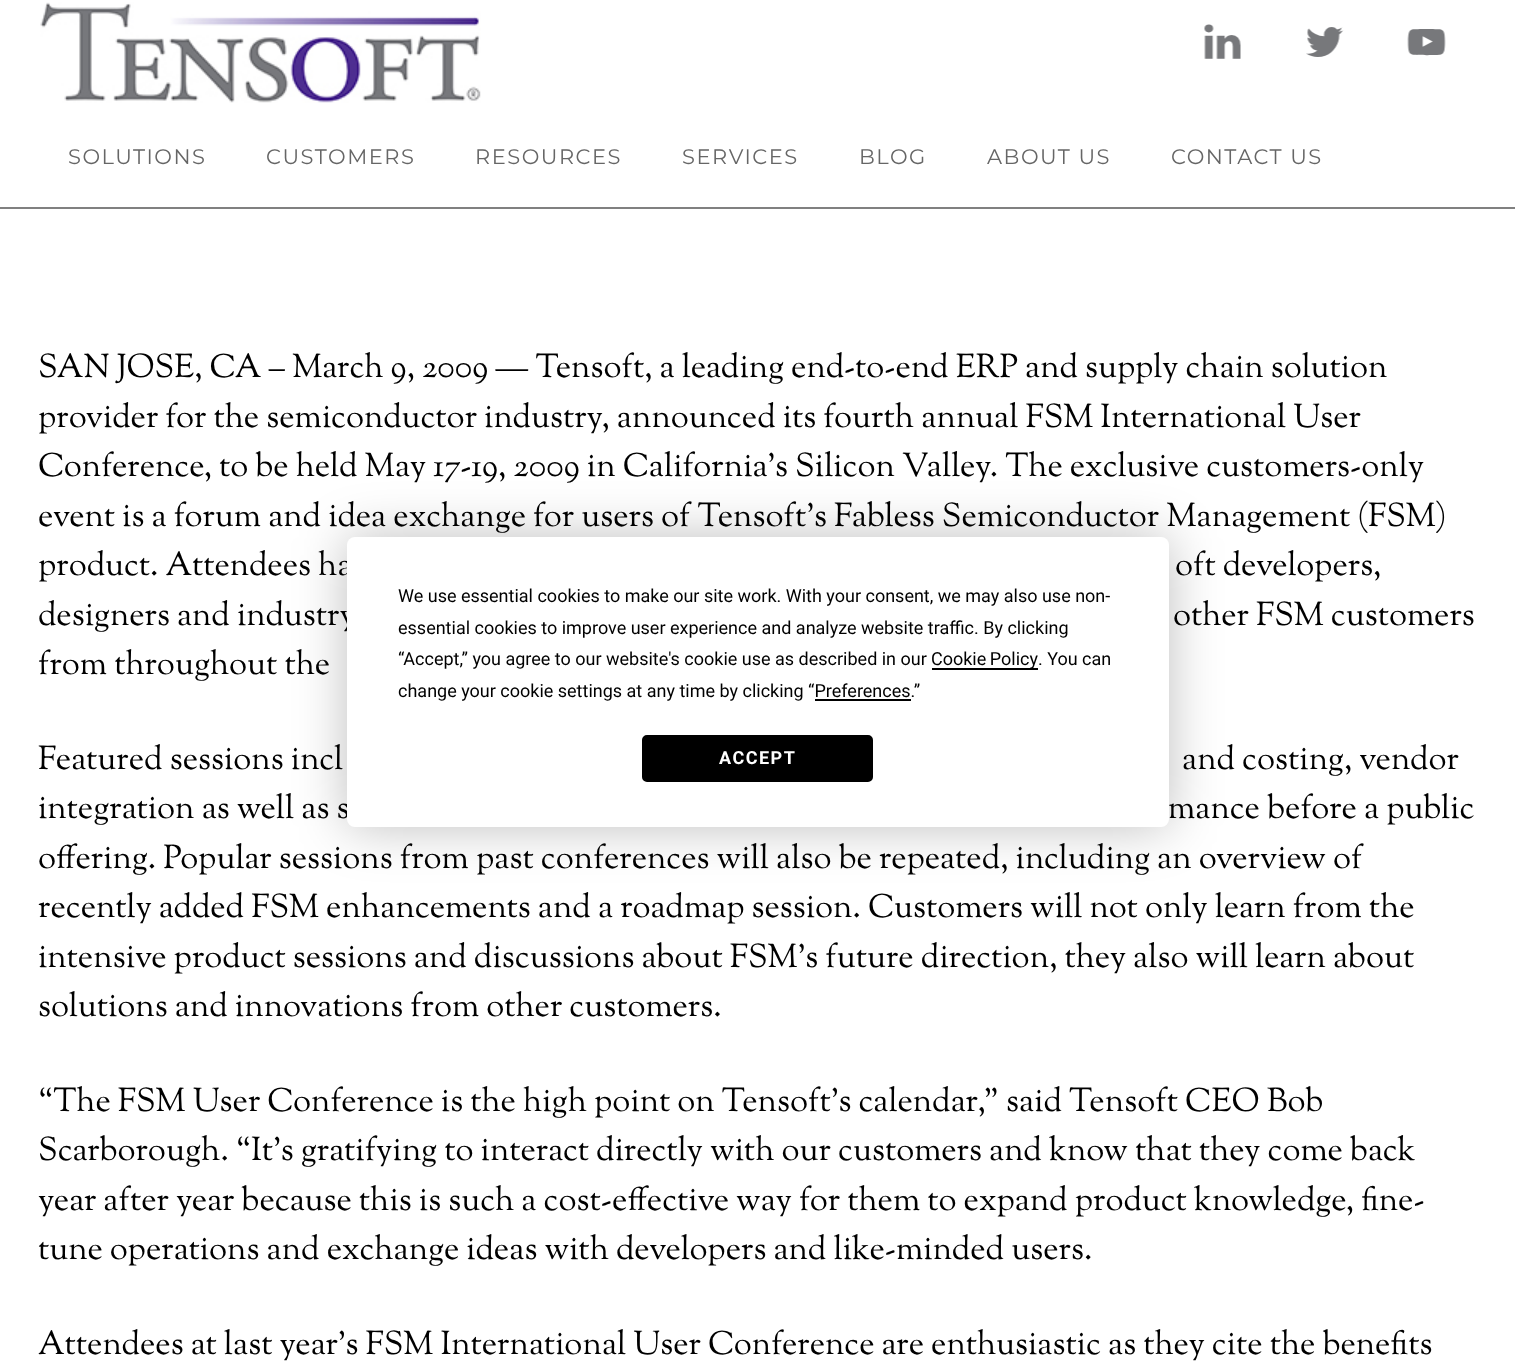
(async () => {
const canvas = document.querySelector("canvas")
canvas.width = 1515
canvas.height = 1361
const c = canvas.getContext("2d")
c.miterLimit = 4
c.fontKerning = "normal"
function T(s,x,y){c.fillText(s,x,y)}
function R(x,y,w,h){c.fillRect(x,y,w,h)}
function Q(x,y,w,h,r){c.beginPath();c.roundRect(x,y,w,h,r);c.fill()}
async function I(src,x,y,w,h){const img=new Image();img.src=src;await img.decode();c.drawImage(img,x,y,w,h)}
c.fillStyle="#fff"
R(0,0,1515,1361)
c.fillStyle="#808080"
R(0,207,1515,2)
await I("1.png",40,2,441,101)
await I("2.png",1204,24,37,35)
await I("3.png",1306,27,38,30)
await I("4.png",1407,29,39,27)
c.letterSpacing="1.5px"
c.font="100 21px Montserrat"
c.fillStyle="#666"
T("SOLUTIONS",68,164)
T("CUSTOMERS",266,164)
T("RESOURCES",475,164)
T("SERVICES",682,164)
T("BLOG",859,164)
T("ABOUT US",987,164)
T("CONTACT US",1171,164)
c.letterSpacing="0px"
c.font="33px Sorts Mill Goudy"
c.fillStyle="#000"
T("SAN JOSE, CA – March 9, 2009 — Tensoft, a leading end-to-end ERP and supply chain solution",38,377)
T("provider for the semiconductor industry, announced its fourth annual FSM International User",38,427)
T("Conference, to be held May 17-19, 2009 in California’s Silicon Valley. The exclusive customers-only",38,476)
T("event is a forum and idea exchange for users of Tensoft’s Fabless Semiconductor Management (FSM)",38,526)
T("product. Attendees ha",38,575)
T("oft developers,",1175,575)
T("designers and industry",38,625)
T("other FSM customers",1173,625)
T("from throughout the",38,674)
T("Featured sessions incl",38,769)
T("and costing, vendor",1182,769)
T("integration as well as s",38,818)
T("mance before a public",1168,818)
T("offering. Popular sessions from past conferences will also be repeated, including an overview of",38,868)
T("recently added FSM enhancements and a roadmap session. Customers will not only learn from the",38,917)
T("intensive product sessions and discussions about FSM’s future direction, they also will learn about",38,967)
T("solutions and innovations from other customers.",38,1016)
T("“The FSM User Conference is the high point on Tensoft’s calendar,” said Tensoft CEO Bob",38,1111)
T("Scarborough. “It’s gratifying to interact directly with our customers and know that they come back",38,1160)
T("year after year because this is such a cost-effective way for them to expand product knowledge, fine-",38,1210)
T("tune operations and exchange ideas with developers and like-minded users.",38,1259)
T("Attendees at last year’s FSM International User Conference are enthusiastic as they cite the benefits",38,1354)
c.fillStyle="#00000040"
c.filter="blur(26px)"
c.beginPath()
c.roundRect(347,537,822,290,8)
c.fill()
c.filter="none"
c.fillStyle="#fff"
Q(347,537,822,290,8)
c.font="18px Roboto"
c.fillStyle="#000"
T("We use essential cookies to make our site work. With your consent, we may also use non-",398,602)
T("essential cookies to improve user experience and analyze website traffic. By clicking",398,634)
T("“Accept,” you agree to our website's cookie use as described in our",398,665)
R(932,668,106,2)
c.wordSpacing="-1px"
T("Cookie Policy",931,665)
c.wordSpacing="0px"
T(". You can",1038,665)
T("change your cookie settings at any time by clicking “Preferences.”",398,697)
R(815,699,96,2)
c.beginPath()
c.roundRect(643,736,229,45,4)
c.fill()
c.strokeStyle="#000"
c.lineWidth=2
c.stroke()
c.letterSpacing="1.5px"
c.font="bold 18px Roboto"
c.fillStyle="#fff"
T("ACCEPT",719,764)
})()
